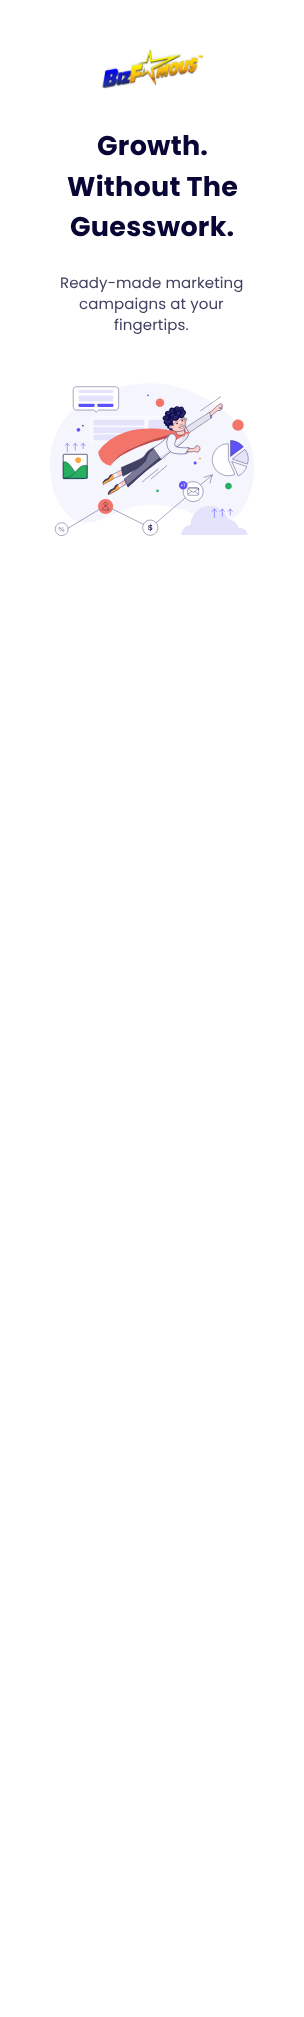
(async () => {
const canvas = document.querySelector("canvas")
canvas.width = 304
canvas.height = 2017
const c = canvas.getContext("2d")
c.miterLimit = 4
c.fontKerning = "normal"
function T(s,x,y){c.fillText(s,x,y)}
function R(x,y,w,h){c.fillRect(x,y,w,h)}
async function I(src,x,y,w,h){const img=new Image();img.src=src;await img.decode();c.drawImage(img,x,y,w,h)}
c.fillStyle="#fff"
R(0,0,304,2017)
await I("1.png",102,50,102,39)
c.letterSpacing="0.25px"
c.font="bold 27px Poppins"
c.fillStyle="#070635"
T("Growth.",97,155)
T("Without The",67,196)
T("Guesswork.",70,236)
c.letterSpacing="0.1px"
c.font="15px Poppins"
c.fillStyle="#414161"
T("Ready-made marketing",60,288)
T("campaigns at your",79,309)
T("fingertips.",114,330)
await I("2.png",50,383,204,153)
})()
